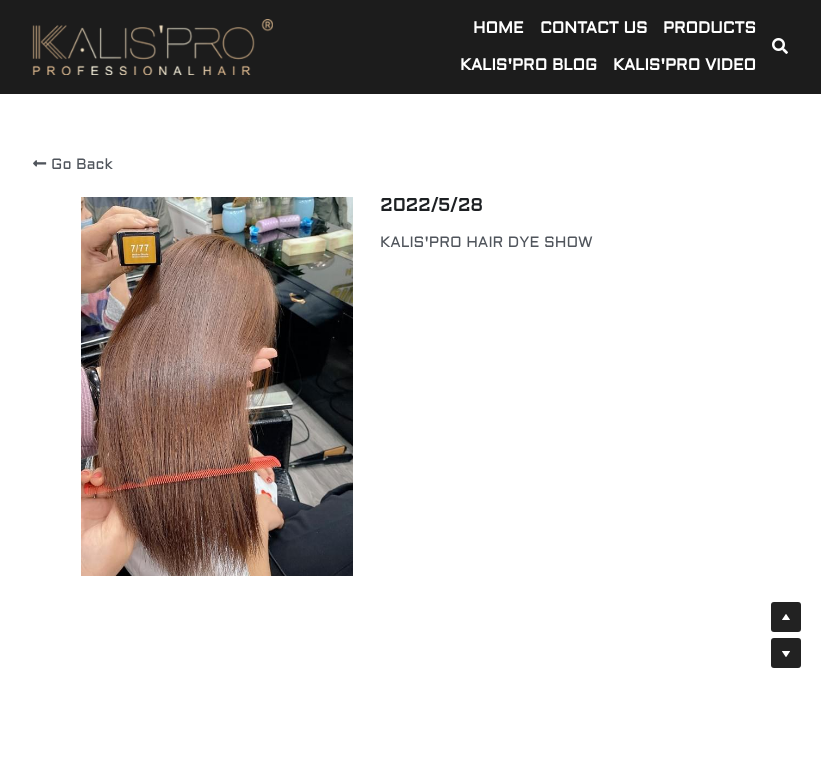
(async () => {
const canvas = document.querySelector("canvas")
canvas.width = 821
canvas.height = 778
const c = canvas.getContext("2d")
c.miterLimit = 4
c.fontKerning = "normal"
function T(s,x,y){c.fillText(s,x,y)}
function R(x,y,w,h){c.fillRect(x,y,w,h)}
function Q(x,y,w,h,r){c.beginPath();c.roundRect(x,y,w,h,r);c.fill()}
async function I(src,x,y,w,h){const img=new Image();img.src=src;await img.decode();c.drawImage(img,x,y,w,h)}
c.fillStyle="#fff"
R(0,0,821,778)
c.fillStyle="#1c1c1c"
R(0,0,821,94)
await I("1.png",32,19,241,56)
c.font="bold 16px Aldrich"
c.fillStyle="#fff"
T("HOME",473,33)
T("CONTACT US",540,33)
T("PRODUCTS",663,33)
T("KALIS'PRO BLOG",460,70)
T("KALIS'PRO VIDEO",613,70)
await I("2.png",772,38,16,16)
await I("3.png",33,160,14,7)
c.font="15px Aldrich"
c.fillStyle="#50555c"
T("Go Back",51,169)
await I("4.png",81,197,272,379)
c.font="bold 18px Aldrich"
c.fillStyle="#1d2023"
T("2022/5/28",380,211)
c.font="15px Aldrich"
c.fillStyle="#50555c"
T("KALIS'PRO HAIR DYE SHOW",380,247)
c.fillStyle="#222"
Q(771,602,30,30,3)
await I("5.png",782,614,8,6)
Q(771,638,30,30,3)
await I("6.png",782,651,8,6)
})()
